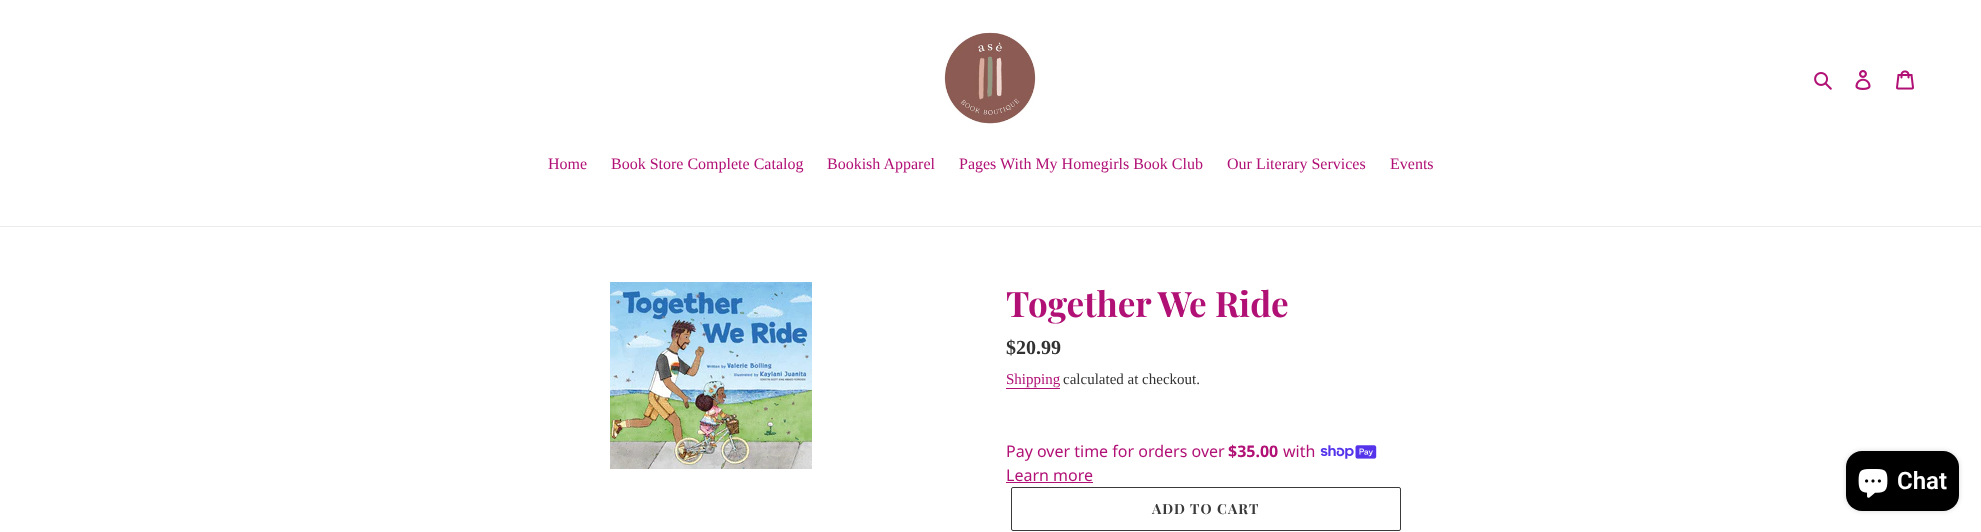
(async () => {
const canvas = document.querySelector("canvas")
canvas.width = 1981
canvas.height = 532
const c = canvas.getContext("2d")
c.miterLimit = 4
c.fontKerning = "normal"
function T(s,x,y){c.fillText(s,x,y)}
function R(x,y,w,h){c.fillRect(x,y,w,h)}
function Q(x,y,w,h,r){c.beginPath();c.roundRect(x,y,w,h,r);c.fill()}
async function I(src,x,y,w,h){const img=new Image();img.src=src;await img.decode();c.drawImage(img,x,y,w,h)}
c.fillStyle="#fff"
R(0,0,1981,532)
await I("1.png",944,30,92,94)
await I("2.png",1814,72,18,18)
await I("3.png",1855,70,16,20)
await I("4.png",1896,70,18,20)
c.fillStyle="#ebebeb"
R(0,226,1981,1)
c.font="16px Liberation Serif"
c.fillStyle="#b11075"
T("Home",548,169)
T("Book Store Complete Catalog",611,169)
T("Bookish Apparel",827,169)
T("Pages With My Homegirls Book Club",959,169)
T("Our Literary Services",1227,169)
T("Events",1390,169)
await I("5.png",610,282,202,187)
c.font="bold 35px Playfair Display"
T("Together We Ride",1006,317)
c.font="bold 20px Liberation Serif"
c.fillStyle="#333232"
T("$20.99",1006,354)
c.font="15px Liberation Serif"
c.fillStyle="#b11075"
T("Shipping",1006,384)
R(1006,388,54,1)
c.fillStyle="#333232"
T("calculated at checkout.",1063,384)
c.font="16px Noto Sans"
c.fillStyle="#b11075"
T("Pay over time for orders over",1006,457)
c.font="bold 16px Noto Sans"
T("$35.00",1228,457)
c.font="16px Noto Sans"
T("with",1283,457)
await I("6.png",1320,445,57,14)
T("Learn more",1006,481)
R(1006,482,87,1)
c.beginPath()
c.roundRect(1011.5,487.5,389,43,1.5)
c.strokeStyle="#3a3a3a"
c.stroke()
c.letterSpacing="1.1px"
c.font="bold 14px Playfair Display"
c.fillStyle="#3a3a3a"
T("ADD TO CART",1152,514)
c.fillStyle="#00000026"
c.filter="blur(2.5px)"
c.beginPath()
c.roundRect(1846,451,113,60,16)
c.fill()
c.filter="none"
c.fillStyle="#000"
Q(1846,451,113,60,16)
await I("7.png",1858,469,30,29)
c.letterSpacing="0px"
c.font="600 24px Roboto"
c.fillStyle="#fff"
T("Chat",1897,489)
})()
